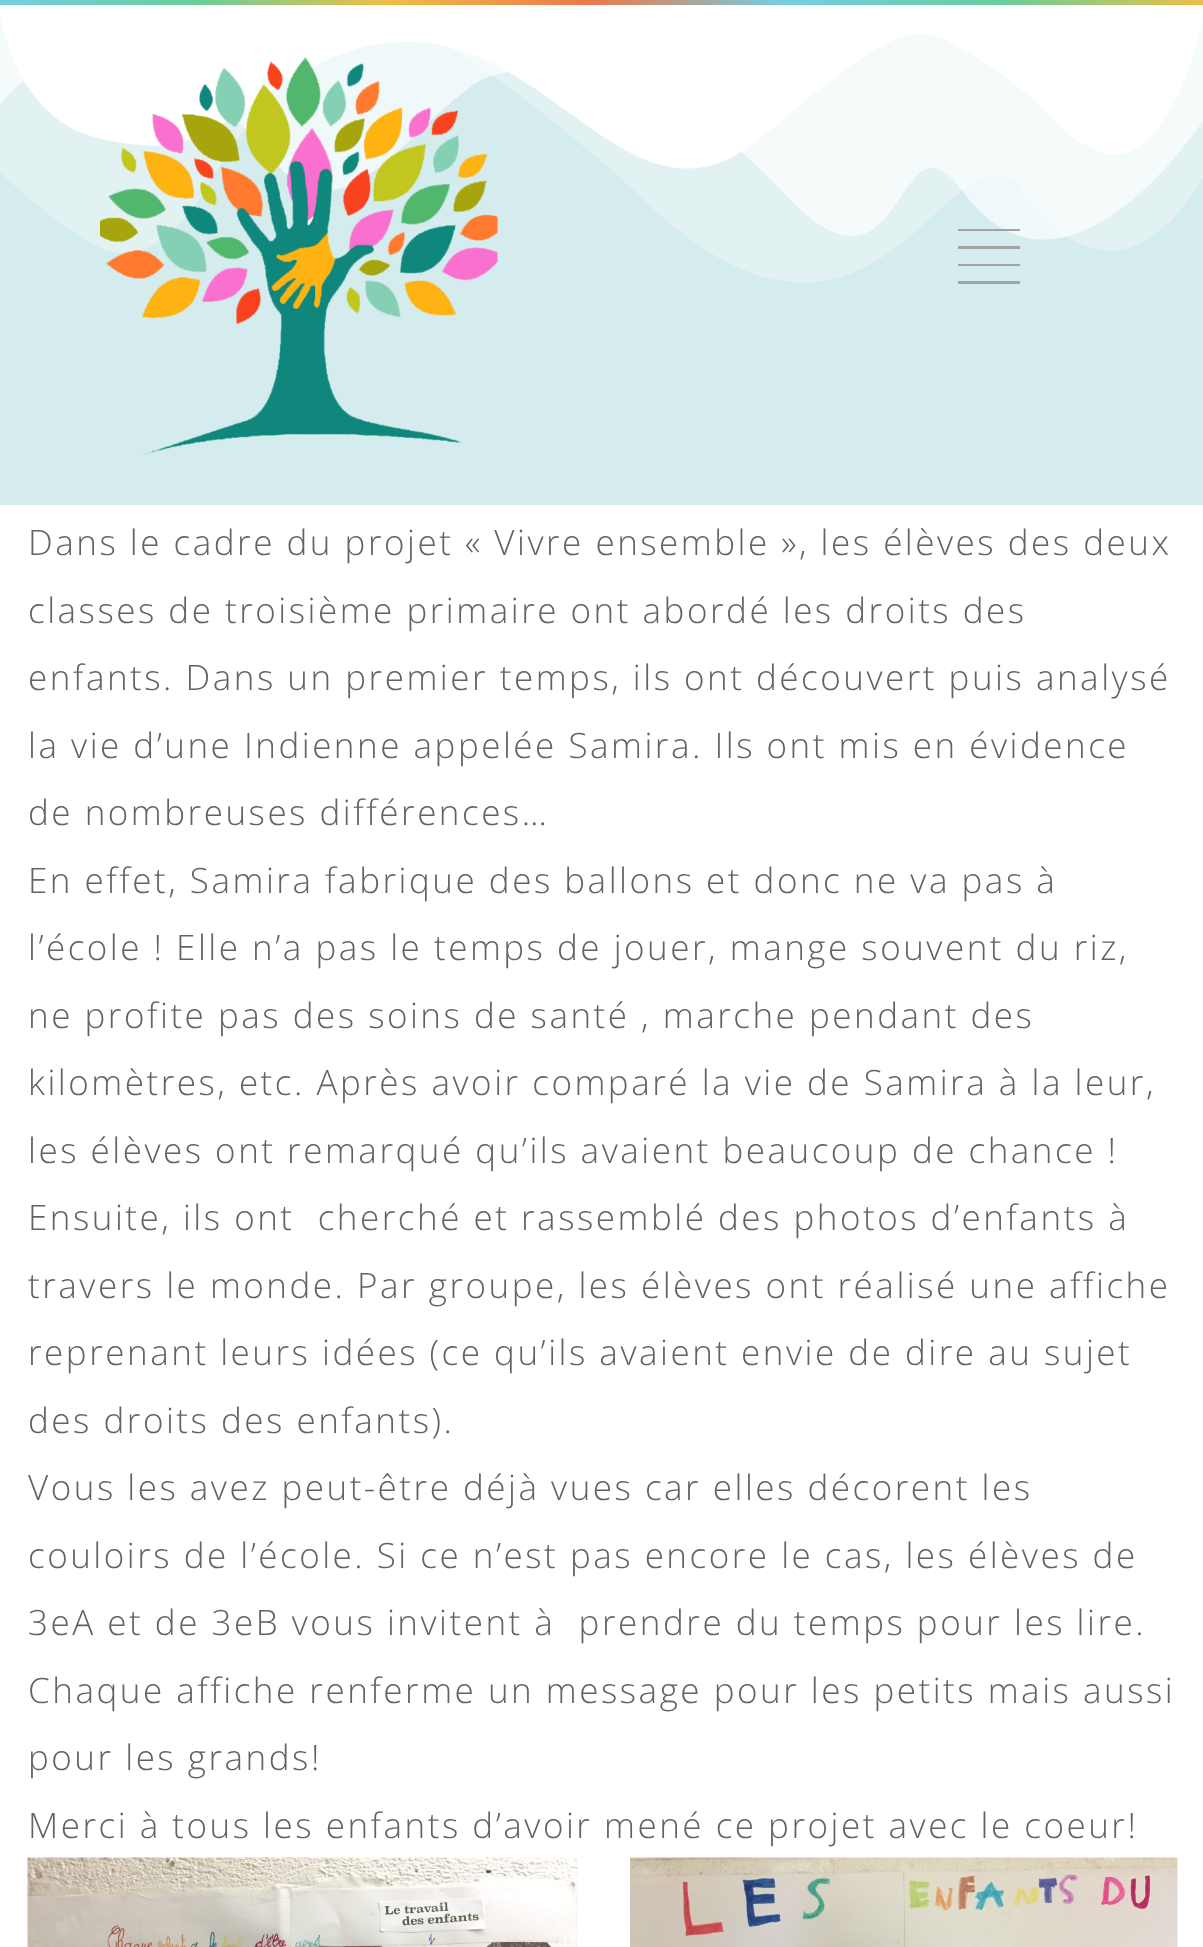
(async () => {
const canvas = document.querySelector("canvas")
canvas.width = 1203
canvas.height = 1947
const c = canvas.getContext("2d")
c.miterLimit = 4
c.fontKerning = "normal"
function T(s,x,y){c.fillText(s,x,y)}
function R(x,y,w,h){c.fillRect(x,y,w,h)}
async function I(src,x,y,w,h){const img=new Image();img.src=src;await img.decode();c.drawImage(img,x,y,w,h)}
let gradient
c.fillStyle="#fff"
R(0,0,1203,1947)
gradient = c.createLinearGradient(0,3.8,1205,3.7)
gradient.addColorStop(0,"#74cee4")
gradient.addColorStop(.16,"#66ce9c")
gradient.addColorStop(.32,"#edbf47")
gradient.addColorStop(.49,"#ec774b")
gradient.addColorStop(.65,"#74cee4")
gradient.addColorStop(.83,"#66ce9c")
gradient.addColorStop(1,"#edbf47")
c.fillStyle = gradient
R(0,0,1203,5)
gradient = c.createLinearGradient(43,-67,1162,579)
gradient.addColorStop(1,"#d4eced")
gradient.addColorStop(1,"#f5c1f8")
c.fillStyle = gradient
R(0,15,1203,490)
await I("1.png",0,5,1203,278)
await I("2.png",100,57,398,398)
c.fillStyle="#a3a3a3"
R(958,229,62,2)
R(958,246,62,3)
R(958,264,62,2)
R(958,281,62,3)
c.letterSpacing="2.5px"
c.font="300 35px Open Sans"
c.fillStyle="#636363"
T("Dans le cadre du projet « Vivre ensemble », les élèves des deux",28,555)
T("classes de troisième primaire ont abordé les droits des",28,623)
T("enfants. Dans un premier temps, ils ont découvert puis analysé",28,690)
T("la vie d’une Indienne appelée Samira. Ils ont mis en évidence",28,758)
T("de nombreuses différences…",28,825)
T("En effet, Samira fabrique des ballons et donc ne va pas à",28,893)
T("l’école ! Elle n’a pas le temps de jouer, mange souvent du riz,",28,960)
T("ne profite pas des soins de santé , marche pendant des",28,1028)
T("kilomètres, etc. Après avoir comparé la vie de Samira à la leur,",28,1095)
T("les élèves ont remarqué qu’ils avaient beaucoup de chance !",28,1163)
T("Ensuite, ils ont  cherché et rassemblé des photos d’enfants à",28,1230)
T("travers le monde. Par groupe, les élèves ont réalisé une affiche",28,1298)
T("reprenant leurs idées (ce qu’ils avaient envie de dire au sujet",28,1365)
T("des droits des enfants).",28,1433)
T("Vous les avez peut-être déjà vues car elles décorent les",28,1500)
T("couloirs de l’école. Si ce n’est pas encore le cas, les élèves de",28,1568)
T("3eA et de 3eB vous invitent à  prendre du temps pour les lire.",28,1635)
T("Chaque affiche renferme un message pour les petits mais aussi",28,1703)
T("pour les grands!",28,1770)
T("Merci à tous les enfants d’avoir mené ce projet avec le coeur!",28,1838)
await I("3.png",27,1857,551,90)
await I("4.png",630,1857,548,90)
})()
